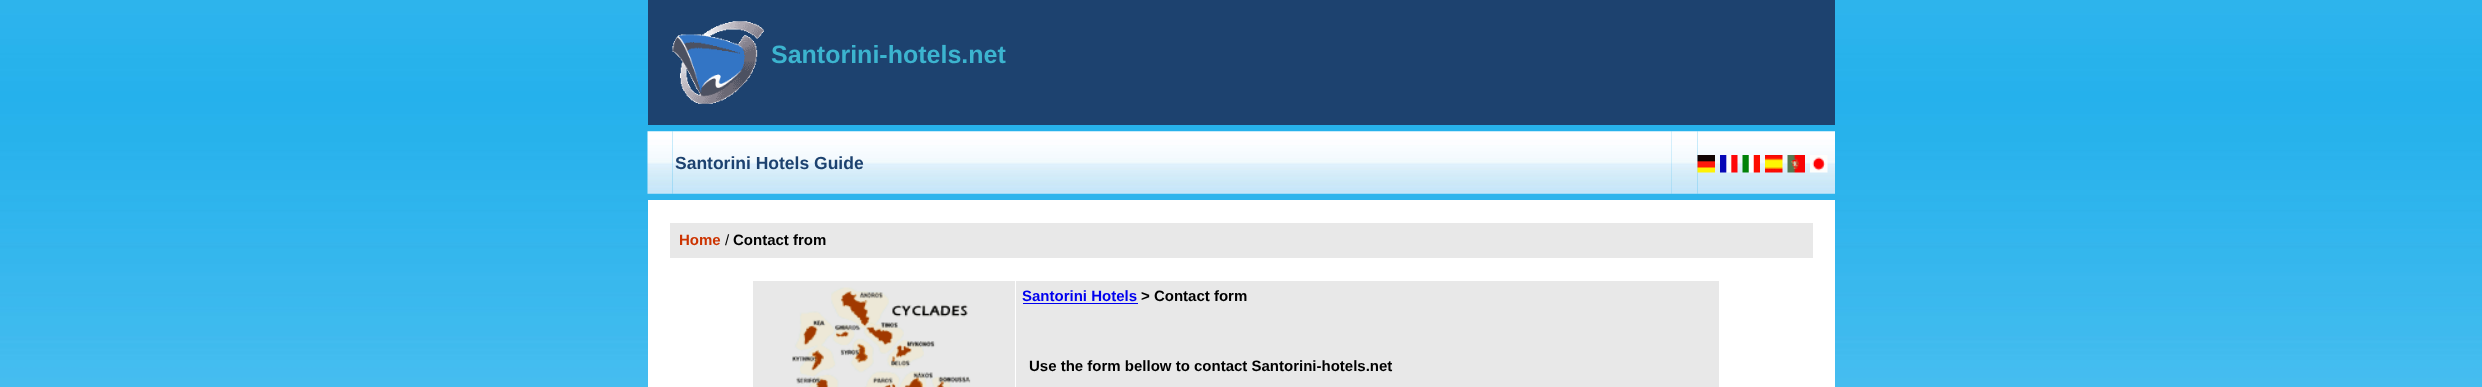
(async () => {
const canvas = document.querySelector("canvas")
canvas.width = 2482
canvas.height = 387
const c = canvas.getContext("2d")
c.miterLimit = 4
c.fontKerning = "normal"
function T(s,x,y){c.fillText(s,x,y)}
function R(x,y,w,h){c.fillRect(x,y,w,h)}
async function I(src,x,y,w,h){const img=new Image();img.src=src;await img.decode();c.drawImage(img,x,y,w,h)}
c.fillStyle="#fff"
R(0,0,2482,387)
await I("1.png",0,0,2482,387)
c.fillStyle="#1d426f"
R(648,0,1187,125)
await I("2.png",672,21,92,83)
c.font="bold 25px Liberation Sans"
c.fillStyle="#3cb4cf"
T("Santorini-hotels.net",771,63)
await I("3.png",647,131,26,63)
await I("4.png",672,131,1000,63)
c.font="bold 17.5px Liberation Sans"
c.fillStyle="#1d426f"
T("Santorini Hotels Guide",675,169)
await I("5.png",1671,131,27,63)
await I("6.png",1697,131,138,63)
await I("7.png",1697,155,18,18)
await I("8.png",1720,155,18,18)
await I("9.png",1742,155,18,18)
await I("10.png",1765,155,18,18)
await I("11.png",1787,155,18,18)
await I("12.png",1810,155,18,18)
c.fillStyle="#fff"
R(648,200,1187,187)
c.fillStyle="#e8e8e8"
R(670,223,1143,35)
c.font="bold 15px Liberation Sans"
c.fillStyle="#c30"
T("Home",679,245)
c.font="15px Liberation Sans"
c.fillStyle="#000"
T("/",725,245)
c.font="bold 15px Liberation Sans"
T("Contact from",733,245)
c.fillStyle="#e8e8e8"
R(753,281,262,106)
await I("13.png",792,287,179,100)
R(1016,281,703,106)
c.fillStyle="#00e"
T("Santorini Hotels",1022,301)
R(1023,303,115,1)
c.fillStyle="#000"
T("> Contact form",1141,301)
T("Use the form bellow to contact Santorini-hotels.net",1029,371)
})()
